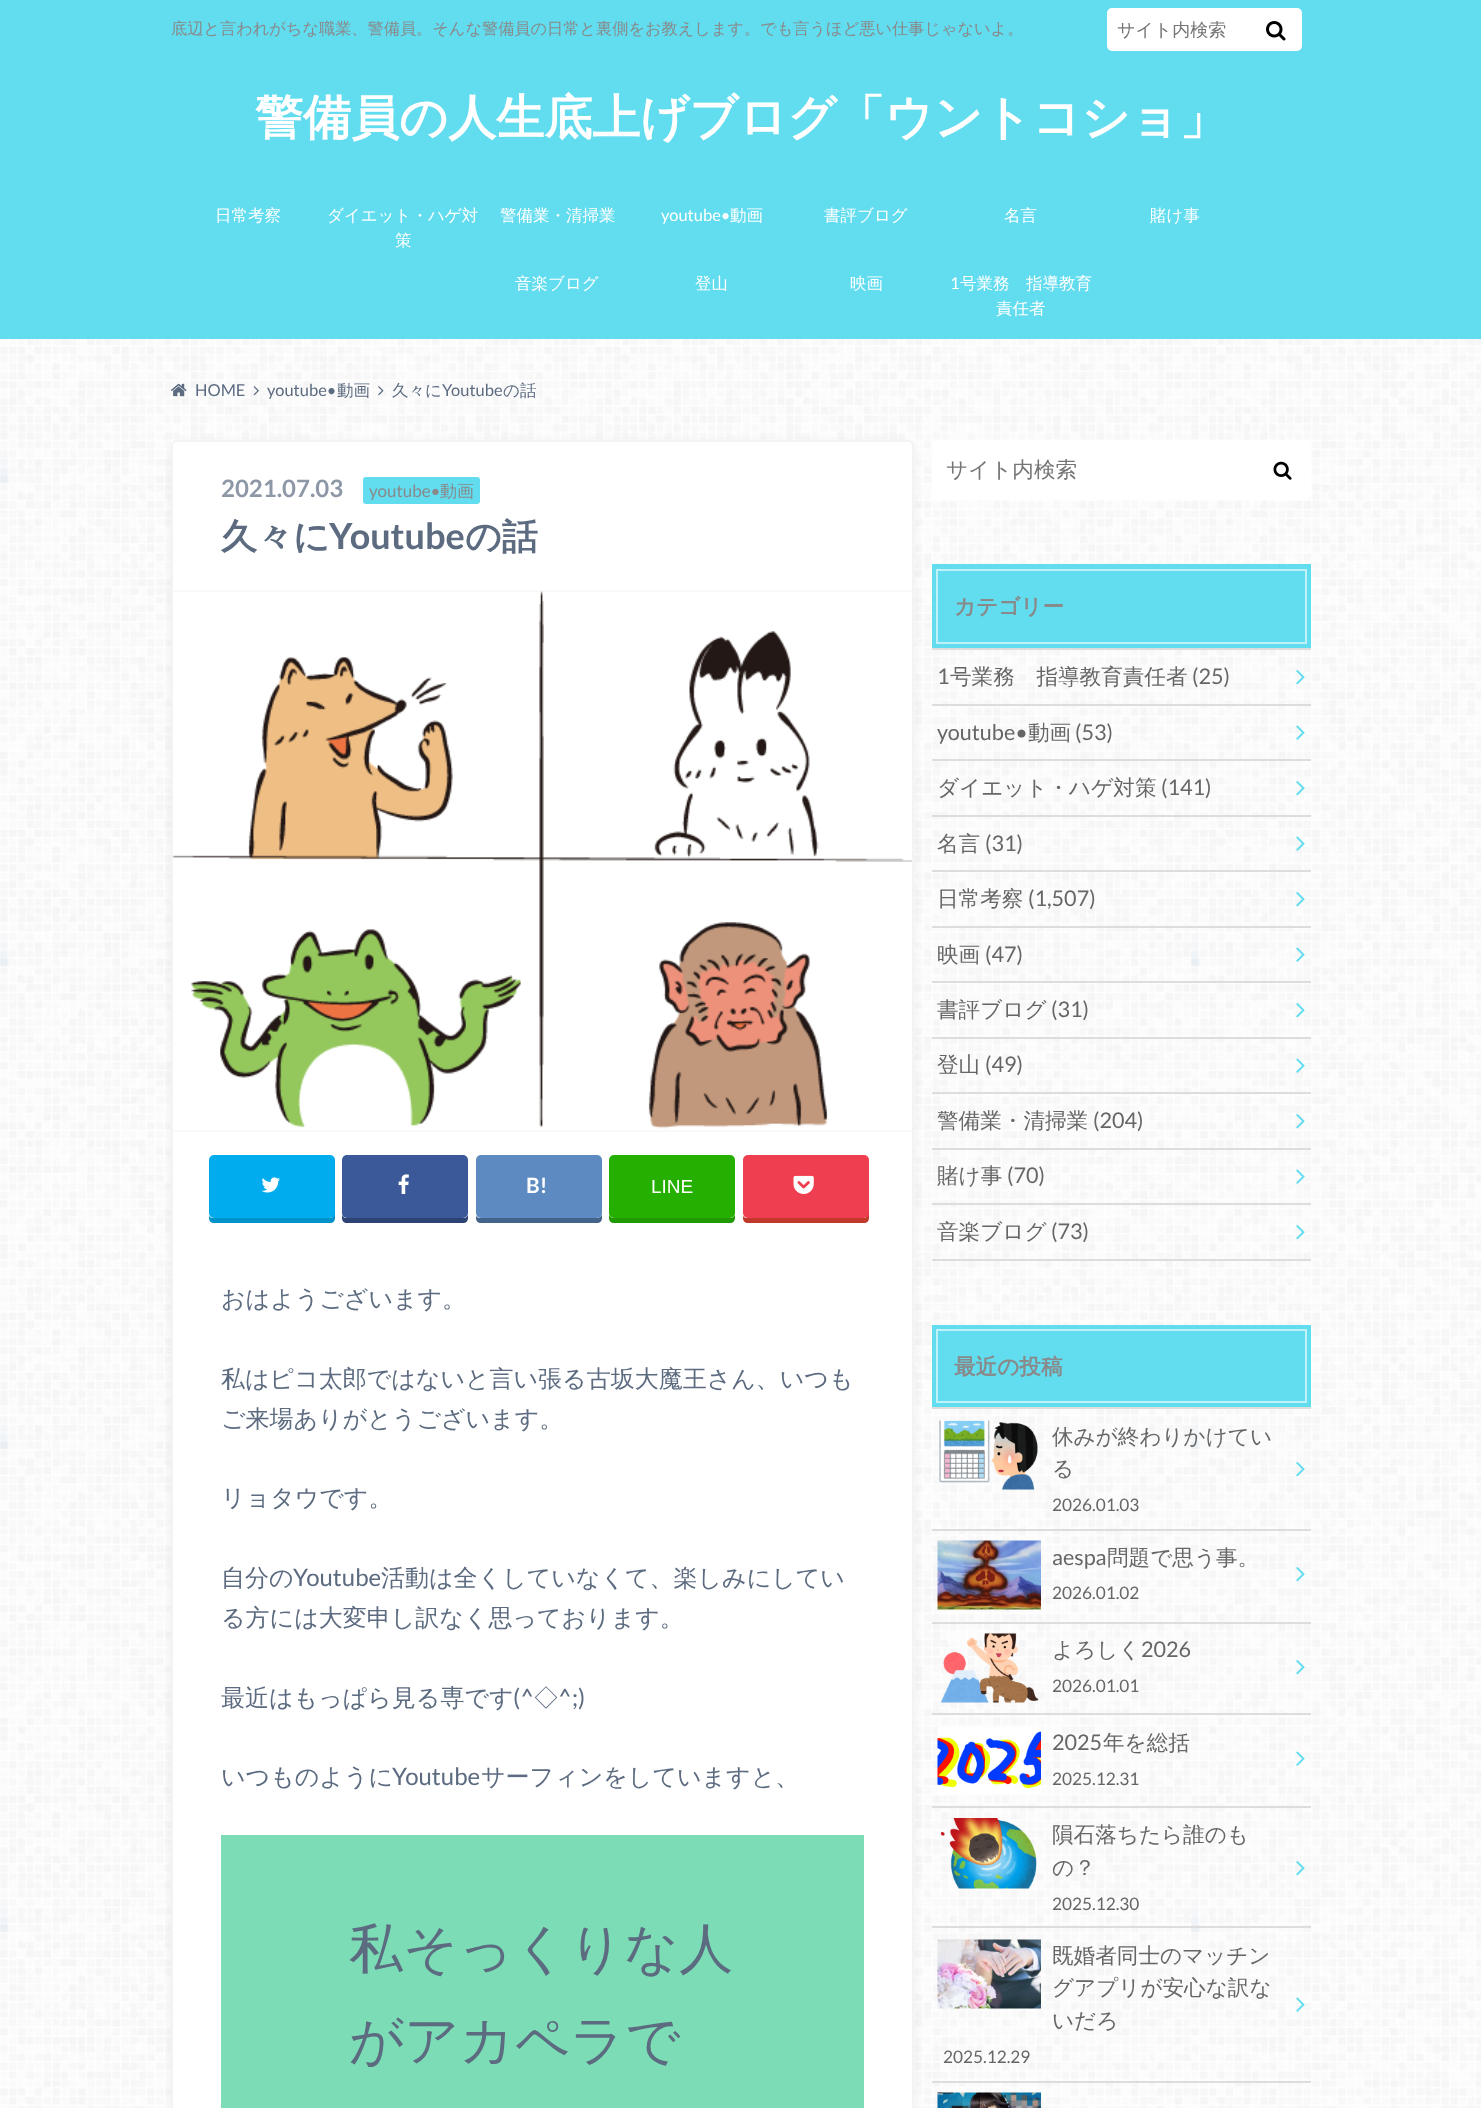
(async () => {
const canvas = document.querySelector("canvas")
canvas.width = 1481
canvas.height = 2108
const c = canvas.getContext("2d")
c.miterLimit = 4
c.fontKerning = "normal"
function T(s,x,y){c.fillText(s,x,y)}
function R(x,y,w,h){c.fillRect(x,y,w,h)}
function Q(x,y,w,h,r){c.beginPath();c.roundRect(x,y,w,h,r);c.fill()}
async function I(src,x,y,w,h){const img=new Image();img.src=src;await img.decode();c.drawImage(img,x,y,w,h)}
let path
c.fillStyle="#fff"
R(0,0,1481,2108)
await I("1.png",0,339,1481,1769)
c.fillStyle="#62dcef"
R(0,0,1481,339)
c.font="500 16.2px WenQuanYi Zen Hei"
c.fillStyle="#898989"
T("底辺と言われがちな職業、警備員。そんな警備員の日常と裏側をお教えします。でも言うほど悪い仕事じゃないよ。",171,34)
c.fillStyle="#fff"
Q(1107,8,195,43,5)
c.font="500 18px WenQuanYi Zen Hei"
c.fillStyle="#757575"
T("サイト内検索",1117,36)
await I("2.png",1266,21,20,20)
c.font="bold 48px WenQuanYi Zen Hei"
c.fillStyle="#fff"
T("警備員の人生底上げブログ「ウントコショ」",255,134)
c.font="500 16.5px WenQuanYi Zen Hei"
T("日常考察",215,221)
T("ダイエット・ハゲ対",327,221)
T("策",395,246)
T("警備業・清掃業",500,221)
c.font="16.5px Lato"
T("youtube•",661,221)
c.font="500 16.5px WenQuanYi Zen Hei"
T("動画",730,221)
T("書評ブログ",824,221)
T("名言",1004,221)
T("賭け事",1150,221)
T("音楽ブログ",515,289)
T("登山",695,289)
T("映画",850,289)
c.font="16.5px Lato"
T("1",950,289)
c.font="500 16.5px WenQuanYi Zen Hei"
T("号業務　指導教育",960,289)
T("責任者",996,314)
await I("3.png",170,383,17,14)
c.font="16.5px Lato"
c.fillStyle="#5c6b80"
T("HOME",195,396)
await I("4.png",253,386,6,10)
T("youtube•",267,396)
c.font="500 16.5px WenQuanYi Zen Hei"
T("動画",337,396)
await I("5.png",378,386,6,10)
T("久々に",392,396)
c.font="16.5px Lato"
T("Youtube",442,396)
c.font="500 16.5px WenQuanYi Zen Hei"
T("の話",503,396)
c.fillStyle="#8a8a8a26"
c.filter="blur(4px)"
c.beginPath()
c.roundRect(171,443,743,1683,6)
c.fill()
c.filter="none"
c.fillStyle="#fff"
c.beginPath()
c.roundRect(172,441,741,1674,5)
c.fill()
c.strokeStyle="#f3f3f3"
c.lineWidth=2
c.stroke()
c.fillStyle="#f8f9fa"
R(173,590,739,2)
c.font="bold 24px Lato"
c.fillStyle="#8d97a6"
T("2021.07.03",221,497)
c.fillStyle="#62dcef"
Q(363,477,117,27,3)
c.font="17px Lato"
c.fillStyle="#898989"
T("youtube•",369,497)
c.font="500 17px WenQuanYi Zen Hei"
T("動画",440,497)
c.font="bold 36px WenQuanYi Zen Hei"
c.fillStyle="#5c6b80"
T("久々に",221,549)
c.font="bold 36px Lato"
T("Youtube",329,549)
c.font="bold 36px WenQuanYi Zen Hei"
T("の話",465,549)
c.fillStyle="#f8f9fa"
R(173,1130,739,2)
await I("6.png",172,591,740,538)
c.fillStyle="#0092ca"
path = new Path2D("M209 1216v2c0 3 2 5 5 5h116c3 0 5-2 5-5v-53l-1-2v51c0 2-2 4-4 4h-117c-2 0-3-1-4-2z")
c.fill(path)
c.fillStyle="#00acee"
Q(209,1155,126,63,5)
await I("7.png",261,1177,19,16)
c.fillStyle="#2c4373"
path = new Path2D("M342 1214v4c0 3 2 5 5 5h116c3 0 5-2 5-5v-4c0 2-2 4-4 4h-118c-2 0-4-2-4-4z")
c.fill(path)
c.fillStyle="#3b5998"
Q(342,1155,126,63,5)
await I("8.png",398,1174,11,20)
c.fillStyle="#43638b"
path = new Path2D("M476 1216v2c0 3 2 5 5 5h116c3 0 5-2 5-5v-53v-2v51c0 2-3 4-5 4h-117c-2 0-3-1-4-2z")
c.fill(path)
c.fillStyle="#5d8ac1"
Q(476,1155,126,63,5)
c.font="bold 21px Lato"
c.fillStyle="#fff"
T("B!",526,1193)
c.fillStyle="#219900"
path = new Path2D("M609 1214v4c0 3 2 5 5 5h116c3 0 5-2 5-5v-4c0 2-2 4-5 4h-116c-3 0-5-2-5-4z")
c.fill(path)
c.fillStyle="#25af00"
Q(609,1155,126,63,5)
c.font="19px Liberation Sans"
c.fillStyle="#fff"
T("LINE",651,1193)
c.fillStyle="#c0392b"
path = new Path2D("M743 1216v2c0 3 2 5 5 5h116c3 0 5-2 5-5v-53l-1-2v51c0 2-2 4-4 4h-117c-2 0-3-1-4-2z")
c.fill(path)
c.fillStyle="#f03e51"
Q(743,1155,126,63,5)
await I("9.png",793,1175,21,19)
c.font="500 24px WenQuanYi Zen Hei"
c.fillStyle="#5c6b80"
T("おはようございます。",221,1307)
T("私はピコ太郎ではないと言い張る古坂大魔王さん、いつも",221,1387)
T("ご来場ありがとうございます。",221,1427)
T("リョタウです。",221,1506)
T("自分の",221,1586)
c.font="24px Lato"
T("Youtube",293,1586)
c.font="500 24px WenQuanYi Zen Hei"
T("活動は全くしていなくて、楽しみにしてい",381,1586)
T("る方には大変申し訳なく思っております。",221,1626)
T("最近はもっぱら見る専です",221,1706)
c.font="24px Lato"
T("(^",513,1706)
c.font="500 24px WenQuanYi Zen Hei"
T("◇",534,1706)
c.font="24px Lato"
T("^;)",558,1706)
c.font="500 24px WenQuanYi Zen Hei"
T("いつものように",221,1785)
c.font="24px Lato"
T("Youtube",392,1785)
c.font="500 24px WenQuanYi Zen Hei"
T("サーフィンをしていますと、",481,1785)
c.fillStyle="#7bdcb5"
R(221,1835,643,273)
c.font="500 54px WenQuanYi Zen Hei"
c.fillStyle="#5c6b80"
T("私そっくりな人",349,1967)
T("がアカペラで",349,2059)
c.fillStyle="#fff"
Q(932,440,379,60,5)
c.font="500 21.6px WenQuanYi Zen Hei"
c.fillStyle="#757575"
T("サイト内検索",946,477)
await I("10.png",1273,461,19,19)
c.fillStyle="#62dcef"
R(932,564,379,84)
c.strokeStyle="#c0f1f9"
c.strokeRect(937,570,369,73)
c.font="bold 21.6px WenQuanYi Zen Hei"
c.fillStyle="#898989"
T("カテゴリー",954,614)
c.fillStyle="#ddd"
R(932,648,379,2)
R(932,704,379,2)
c.font="21.6px Lato"
c.fillStyle="#666"
T("1",937,684)
c.font="500 21.6px WenQuanYi Zen Hei"
T("号業務　指導教育責任者",950,684)
c.font="21.6px Lato"
T("(25)",1192,684)
await I("11.png",1296,670,9,15)
c.fillStyle="#ddd"
R(932,759,379,2)
c.fillStyle="#666"
T("youtube•",937,740)
c.font="500 21.6px WenQuanYi Zen Hei"
T("動画",1028,740)
c.font="21.6px Lato"
T("(53)",1075,740)
await I("12.png",1296,725,9,15)
c.fillStyle="#ddd"
R(932,815,379,2)
c.font="500 21.6px WenQuanYi Zen Hei"
c.fillStyle="#666"
T("ダイエット・ハゲ対策",937,795)
c.font="21.6px Lato"
T("(141)",1161,795)
await I("13.png",1296,781,9,15)
c.fillStyle="#ddd"
R(932,870,379,2)
c.font="500 21.6px WenQuanYi Zen Hei"
c.fillStyle="#666"
T("名言",937,851)
c.font="21.6px Lato"
T("(31)",985,851)
await I("14.png",1296,836,9,15)
c.fillStyle="#ddd"
R(932,926,379,2)
c.font="500 21.6px WenQuanYi Zen Hei"
c.fillStyle="#666"
T("日常考察",937,906)
c.font="21.6px Lato"
T("(1,507)",1028,906)
await I("15.png",1296,892,9,15)
c.fillStyle="#ddd"
R(932,981,379,2)
c.font="500 21.6px WenQuanYi Zen Hei"
c.fillStyle="#666"
T("映画",937,962)
c.font="21.6px Lato"
T("(47)",985,962)
await I("16.png",1296,947,9,15)
c.fillStyle="#ddd"
R(932,1037,379,2)
c.font="500 21.6px WenQuanYi Zen Hei"
c.fillStyle="#666"
T("書評ブログ",937,1017)
c.font="21.6px Lato"
T("(31)",1051,1017)
await I("17.png",1296,1003,9,15)
c.fillStyle="#ddd"
R(932,1092,379,2)
c.font="500 21.6px WenQuanYi Zen Hei"
c.fillStyle="#666"
T("登山",937,1072)
c.font="21.6px Lato"
T("(49)",985,1072)
await I("18.png",1296,1058,9,15)
c.fillStyle="#ddd"
R(932,1148,379,2)
c.font="500 21.6px WenQuanYi Zen Hei"
c.fillStyle="#666"
T("警備業・清掃業",937,1128)
c.font="21.6px Lato"
T("(204)",1093,1128)
await I("19.png",1296,1114,9,15)
c.fillStyle="#ddd"
R(932,1203,379,2)
c.font="500 21.6px WenQuanYi Zen Hei"
c.fillStyle="#666"
T("賭け事",937,1183)
c.font="21.6px Lato"
T("(70)",1007,1183)
await I("20.png",1296,1169,9,15)
c.fillStyle="#ddd"
R(932,1259,379,2)
c.font="500 21.6px WenQuanYi Zen Hei"
c.fillStyle="#666"
T("音楽ブログ",937,1239)
c.font="21.6px Lato"
T("(73)",1051,1239)
await I("21.png",1296,1225,9,15)
c.fillStyle="#62dcef"
R(932,1325,379,82)
c.strokeRect(937,1330,369,72)
c.font="bold 21.6px WenQuanYi Zen Hei"
c.fillStyle="#898989"
T("最近の投稿",954,1374)
c.fillStyle="#ddd"
R(932,1407,379,2)
R(932,1529,379,2)
await I("22.png",939,1420,99,70)
c.font="500 21.6px WenQuanYi Zen Hei"
c.fillStyle="#666"
T("休みが終わりかけてい",1052,1444)
T("る",1052,1476)
await I("23.png",1296,1462,9,15)
c.font="17.25px Lato"
T("2026.01.03",1052,1511)
c.fillStyle="#ddd"
R(932,1622,379,2)
await I("24.png",937,1540,104,70)
c.font="21.6px Lato"
c.fillStyle="#666"
T("aespa",1052,1565)
c.font="500 21.6px WenQuanYi Zen Hei"
T("問題で思う事。",1107,1565)
await I("25.png",1296,1567,9,15)
c.font="17.25px Lato"
T("2026.01.02",1052,1599)
c.fillStyle="#ddd"
R(932,1713,379,2)
await I("26.png",940,1633,99,70)
c.font="500 21.6px WenQuanYi Zen Hei"
c.fillStyle="#666"
T("よろしく",1052,1657)
c.font="21.6px Lato"
T("2026",1141,1657)
await I("27.png",1296,1660,9,15)
c.font="17.25px Lato"
T("2026.01.01",1052,1692)
c.fillStyle="#ddd"
R(932,1806,379,2)
await I("28.png",937,1727,104,67)
c.font="21.6px Lato"
c.fillStyle="#666"
T("2025",1052,1750)
c.font="500 21.6px WenQuanYi Zen Hei"
T("年を総括",1103,1750)
await I("29.png",1296,1751,9,15)
c.font="17.25px Lato"
T("2025.12.31",1052,1785)
c.fillStyle="#ddd"
R(932,1926,379,2)
await I("30.png",940,1818,97,71)
c.font="500 21.6px WenQuanYi Zen Hei"
c.fillStyle="#666"
T("隕石落ちたら誰のも",1052,1842)
T("の？",1052,1875)
await I("31.png",1296,1861,9,15)
c.font="17.25px Lato"
T("2025.12.30",1052,1910)
c.fillStyle="#ddd"
R(932,2081,379,2)
await I("32.png",937,1939,104,70)
c.font="500 21.6px WenQuanYi Zen Hei"
c.fillStyle="#666"
T("既婚者同士のマッチン",1052,1963)
T("グアプリが安心な訳な",1052,1995)
await I("33.png",1296,1997,9,15)
T("いだろ",1052,2028)
c.font="17.25px Lato"
T("2025.12.29",943,2063)
await I("34.png",937,2092,104,16)
})()
